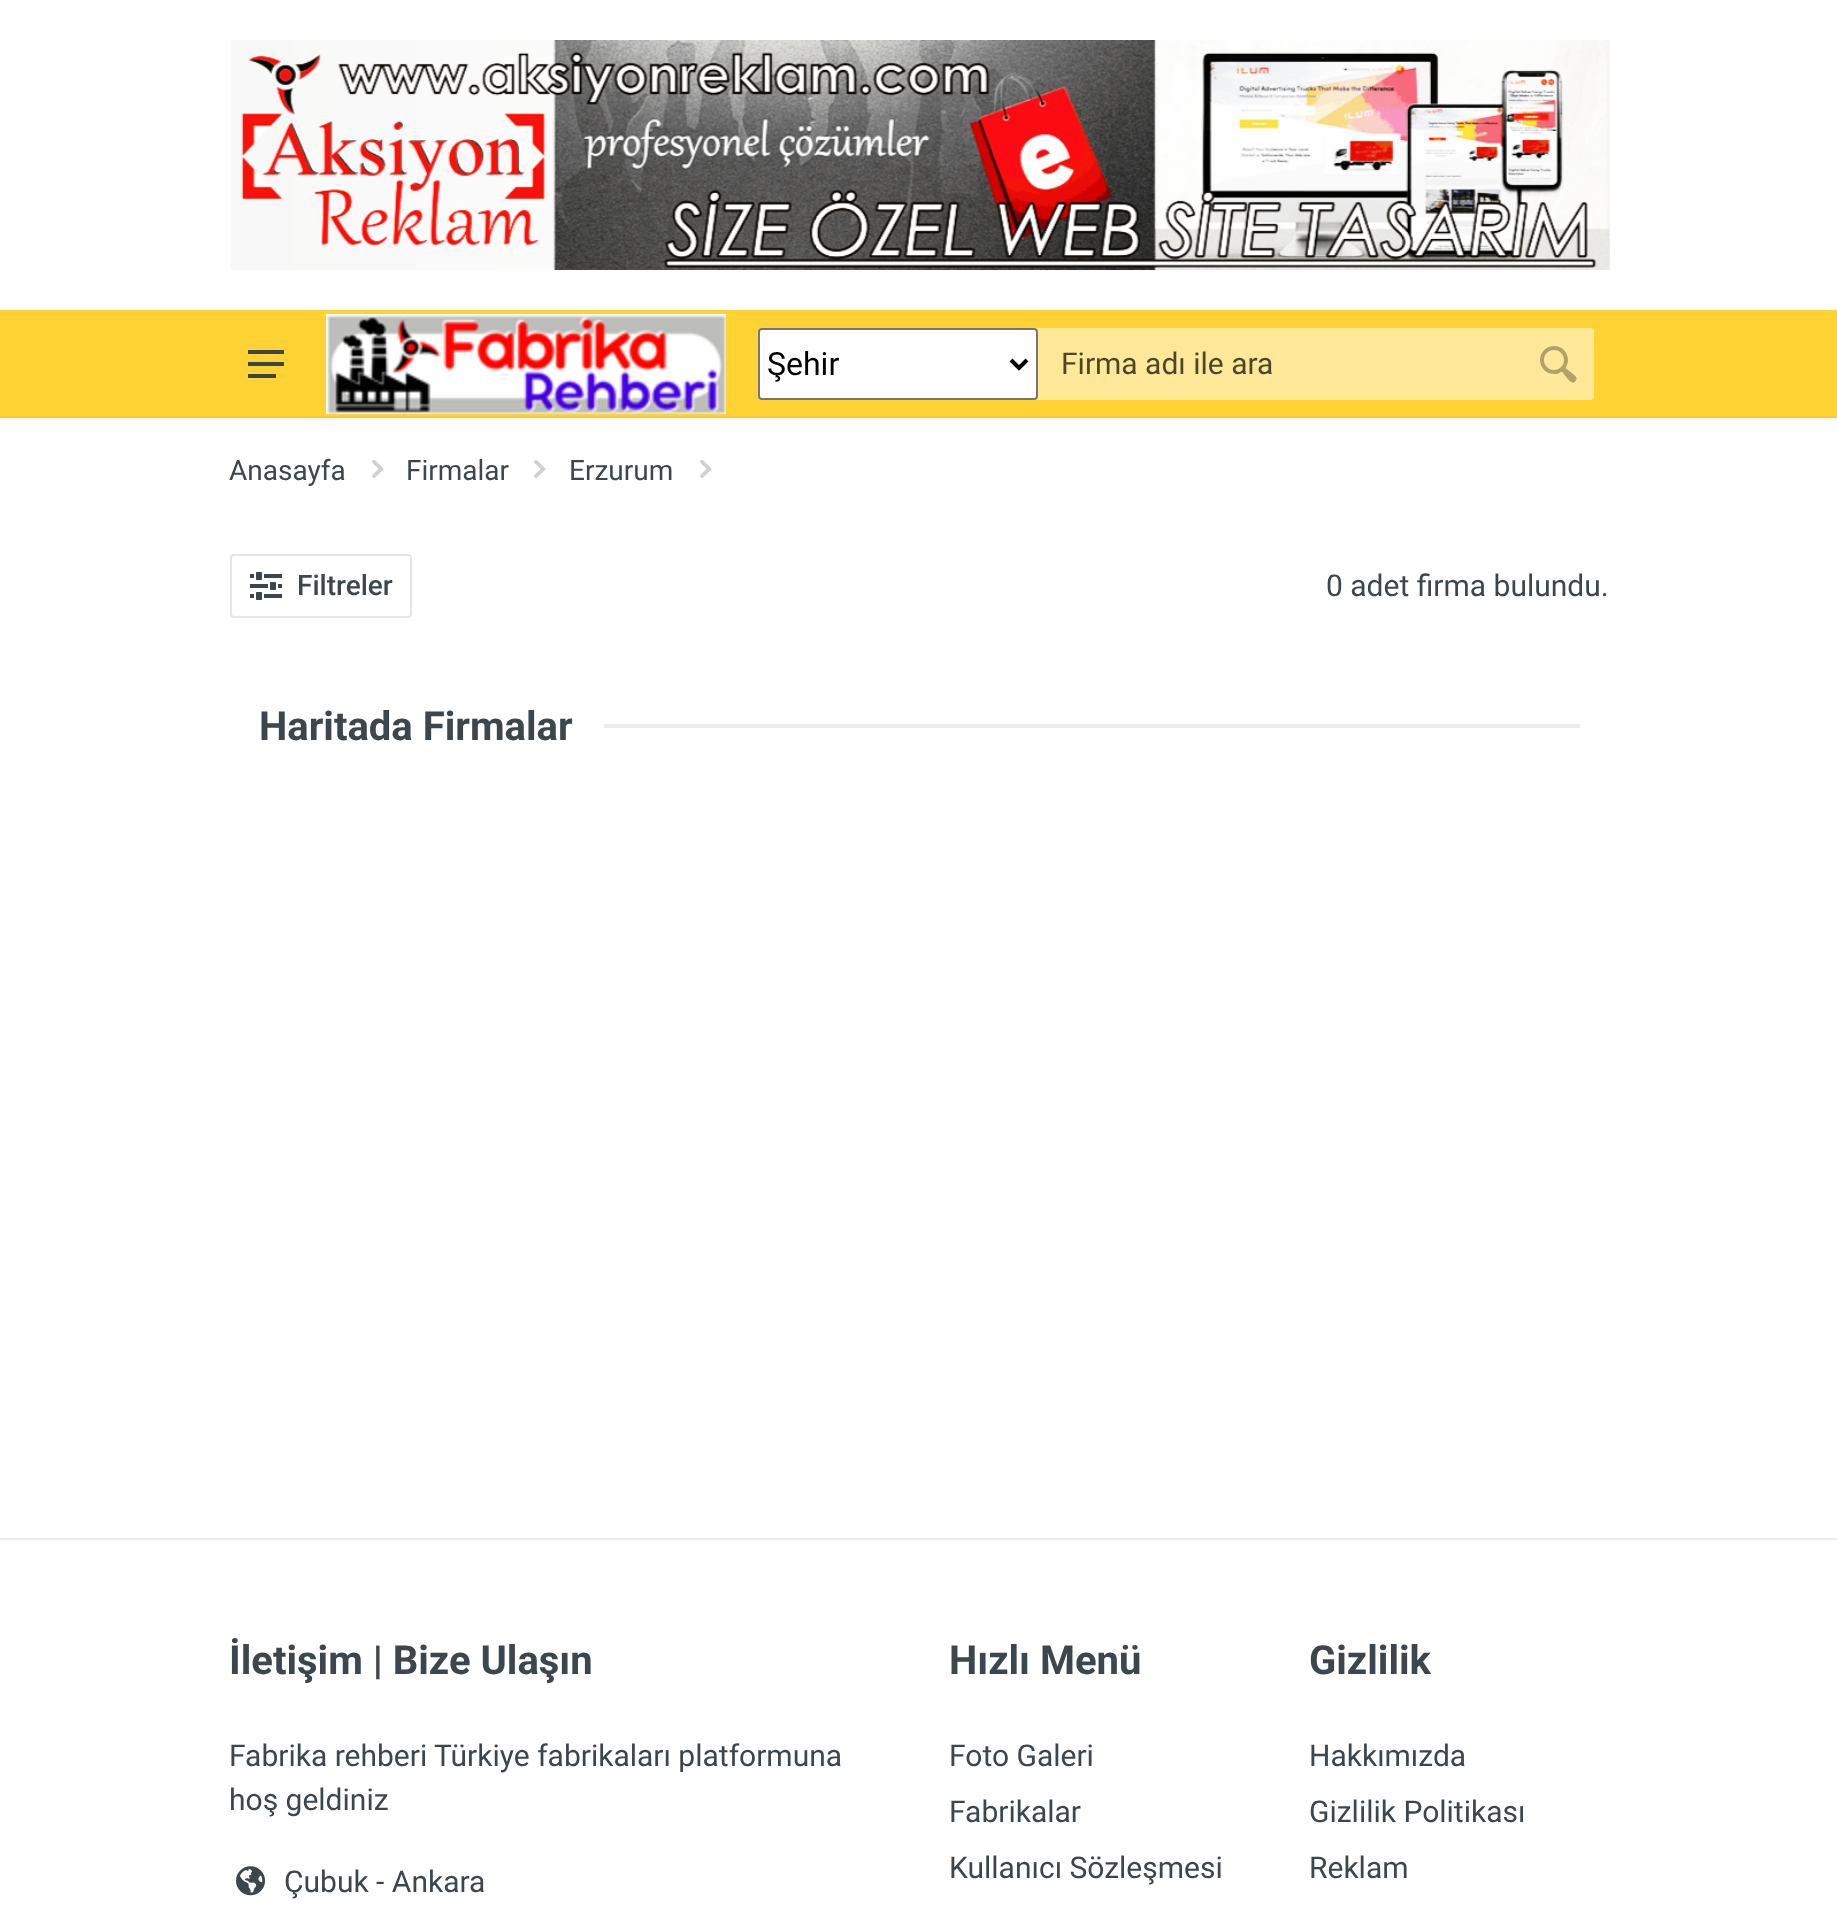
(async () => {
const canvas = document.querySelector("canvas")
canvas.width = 1837
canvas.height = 1908
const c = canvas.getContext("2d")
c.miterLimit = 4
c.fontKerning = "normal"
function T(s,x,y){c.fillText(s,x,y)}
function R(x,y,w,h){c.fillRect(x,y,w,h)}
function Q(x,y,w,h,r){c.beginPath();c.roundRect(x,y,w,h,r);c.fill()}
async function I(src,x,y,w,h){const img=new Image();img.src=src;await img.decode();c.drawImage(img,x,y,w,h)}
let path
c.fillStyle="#fff"
R(0,0,1837,1908)
await I("1.png",230,40,1380,230)
c.fillStyle="#f5f5f5"
R(0,418,1837,2)
c.fillStyle="#ffd333"
R(0,310,1837,106)
c.fillStyle="#f5cb31"
R(0,416,1837,2)
await I("2.png",248,350,36,28)
await I("3.png",326,314,400,100)
c.fillStyle="#ffe999"
Q(758,328,836,72,4)
c.fillStyle="#fff"
c.beginPath()
c.roundRect(759,329,278,70,3)
c.fill()
c.strokeStyle="#767676"
c.lineWidth=2
c.stroke()
path = new Path2D("M1011 360l8 8l8-8")
c.strokeStyle="#000"
c.lineWidth=4
c.stroke(path)
c.font="32px Roboto"
c.fillStyle="#000"
T("Şehir",767,375)
c.font="30px Roboto"
c.fillStyle="#4d462e"
T("Firma adı ile ara",1061,374)
await I("4.png",1540,346,37,37)
c.font="28px Roboto"
c.fillStyle="#3d464d"
T("Anasayfa",229,480)
await I("5.png",372,460,12,18)
T("Firmalar",406,480)
await I("5.png",534,460,12,18)
T("Erzurum",569,480)
await I("5.png",700,460,12,18)
c.beginPath()
c.roundRect(231,555,180,62,3)
c.strokeStyle="#e5e5e5"
c.lineWidth=2
c.stroke()
await I("6.png",250,572,32,28)
c.font="500 28px Roboto"
T("Filtreler",297,595)
c.font="30px Roboto"
T("0 adet firma bulundu.",1326,596)
c.font="bold 40px Roboto"
T("Haritada Firmalar",259,740)
c.fillStyle="#ebebeb"
R(604,724,976,4)
R(0,1538,1837,2)
c.fillStyle="#3d464d"
T("İletişim | Bize Ulaşın",229,1674)
c.font="30px Roboto"
T("Fabrika rehberi Türkiye fabrikaları platformuna",229,1766)
T("hoş geldiniz",229,1810)
await I("7.png",236,1866,30,30)
T("Çubuk - Ankara",284,1892)
c.font="bold 40px Roboto"
T("Hızlı Menü",949,1674)
c.font="30px Roboto"
T("Foto Galeri",949,1766)
T("Fabrikalar",949,1822)
T("Kullanıcı Sözleşmesi",949,1878)
c.font="bold 40px Roboto"
T("Gizlilik",1309,1674)
c.font="30px Roboto"
T("Hakkımızda",1309,1766)
T("Gizlilik Politikası",1309,1822)
T("Reklam",1309,1878)
})()
